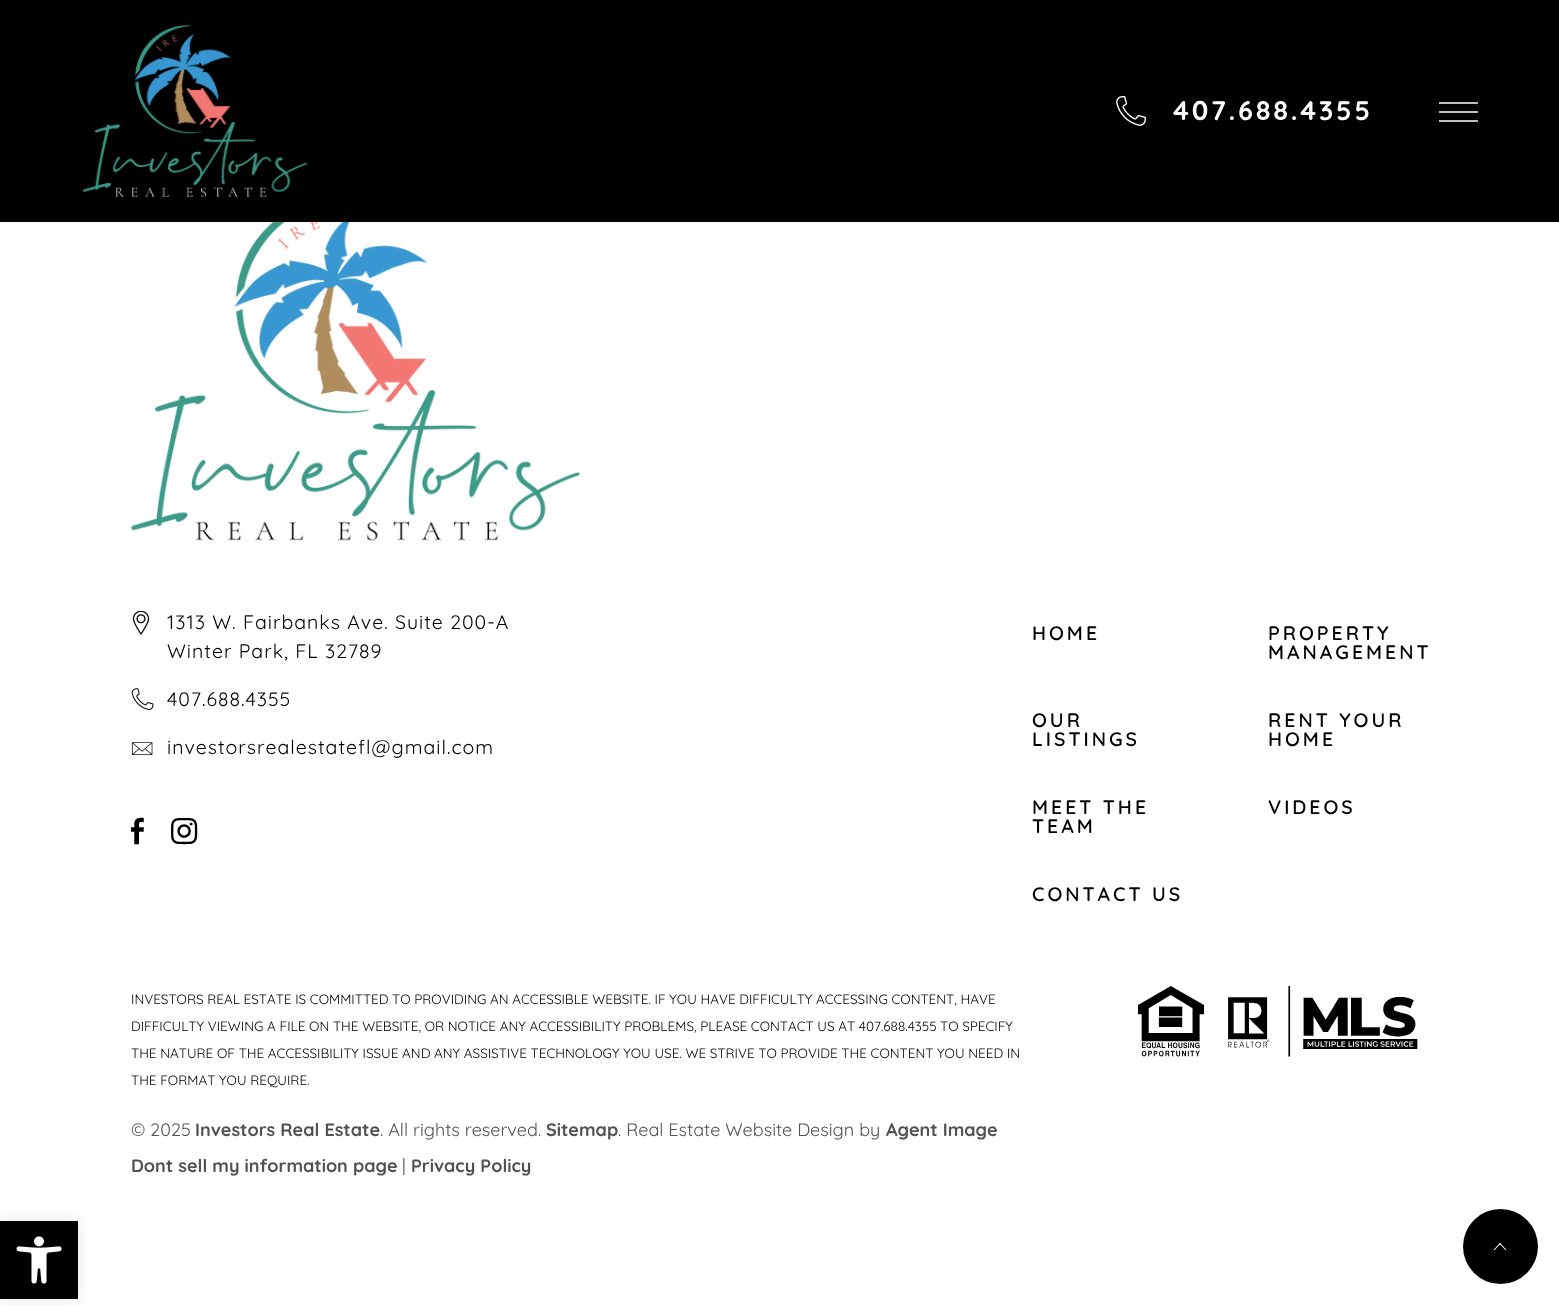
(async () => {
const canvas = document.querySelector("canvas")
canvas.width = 1559
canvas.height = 1306
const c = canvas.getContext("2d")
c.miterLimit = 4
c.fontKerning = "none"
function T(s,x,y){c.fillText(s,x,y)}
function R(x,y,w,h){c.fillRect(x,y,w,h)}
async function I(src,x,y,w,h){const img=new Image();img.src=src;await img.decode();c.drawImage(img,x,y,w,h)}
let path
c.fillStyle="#fff"
R(0,0,1559,1306)
c.fillStyle="#000"
R(0,0,1559,222)
await I("1.png",82,25,226,173)
await I("2.png",1116,95,31,31)
c.letterSpacing="2.75px"
c.font="bold 27px Quicksand"
c.fillStyle="#fff"
T("407.688.4355",1173,120)
c.fillStyle="#bfbfbf"
R(1439,120,39,2)
R(1439,111,39,2)
R(1439,102,39,2)
await I("3.png",130,222,450,319)
await I("4.png",132,611,18,24)
c.letterSpacing="1px"
c.font="19.5px Quicksand"
c.fillStyle="#000"
T("1313 W. Fairbanks Ave. Suite 200-A",167,629)
T("Winter Park, FL 32789",167,658)
await I("5.png",131,688,23,22)
T("407.688.4355",167,706)
await I("6.png",131,742,22,13)
T("investorsrealestatefl@gmail.com",167,754)
c.font="32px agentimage"
T("򰄔",131,845)
T("򰄆",171,845)
c.letterSpacing="3px"
c.font="600 19.5px Quicksand"
T("HOME",1032,640)
T("PROPERTY",1268,640)
T("MANAGEMENT",1268,659)
T("OUR",1032,727)
T("LISTINGS",1032,746)
T("RENT YOUR",1268,727)
T("HOME",1268,746)
T("MEET THE",1032,814)
T("TEAM",1032,833)
T("VIDEOS",1268,814)
T("CONTACT US",1032,901)
c.letterSpacing="0px"
c.font="13.5px Quicksand"
T("INVESTORS REAL ESTATE IS COMMITTED TO PROVIDING AN ACCESSIBLE WEBSITE. IF YOU HAVE DIFFICULTY",131,1004)
T("ACCESSING CONTENT, HAVE",816,1004)
T("DIFFICULTY VIEWING A FILE ON THE WEBSITE, OR NOTICE ANY ACCESSIBILITY PROBLEMS, PLEASE CONTACT US AT 407.688.4355",131,1031)
T("TO SPECIFY",940,1031)
T("THE NATURE OF THE ACCESSIBILITY ISSUE AND ANY ASSISTIVE TECHNOLOGY YOU USE. WE STRIVE TO PROVIDE THE CONTENT YOU NEED IN",131,1058)
T("THE FORMAT YOU REQUIRE.",131,1085)
c.font="18px Quicksand"
c.fillStyle="#525252"
T("© 2025",131,1136)
c.font="bold 18px Quicksand"
T("Investors Real Estate",195,1136)
c.font="18px Quicksand"
T(". All rights reserved.",380,1136)
c.font="bold 18px Quicksand"
T("Sitemap",546,1136)
c.font="18px Quicksand"
T(". Real Estate Website Design by",618,1136)
c.font="bold 18px Quicksand"
T("Agent Image",886,1136)
T("Dont sell my information page",131,1172)
c.font="18px Quicksand"
T("|",402,1172)
c.font="bold 18px Quicksand"
T("Privacy Policy",411,1172)
c.font="70.5px agentimage"
c.fillStyle="#000"
T("򰂐",1138,1052)
T("򰌇",1228,1052)
c.fillStyle="#0000001a"
c.filter="blur(7.5px)"
c.beginPath()
c.rect(0,1221,78,78)
c.fill()
c.filter="none"
c.fillStyle="#000"
R(0,1221,78,78)
await I("7.png",16,1236,46,48)
c.beginPath()
c.arc(1500.5,1246.5,37.5,0,7)
c.fill()
path = new Path2D("M1494.5 1249.5l5.5-6l5.5 6")
c.strokeStyle="#fff"
c.lineWidth=1.1
c.lineCap="round"
c.lineJoin="round"
c.stroke(path)
})()
